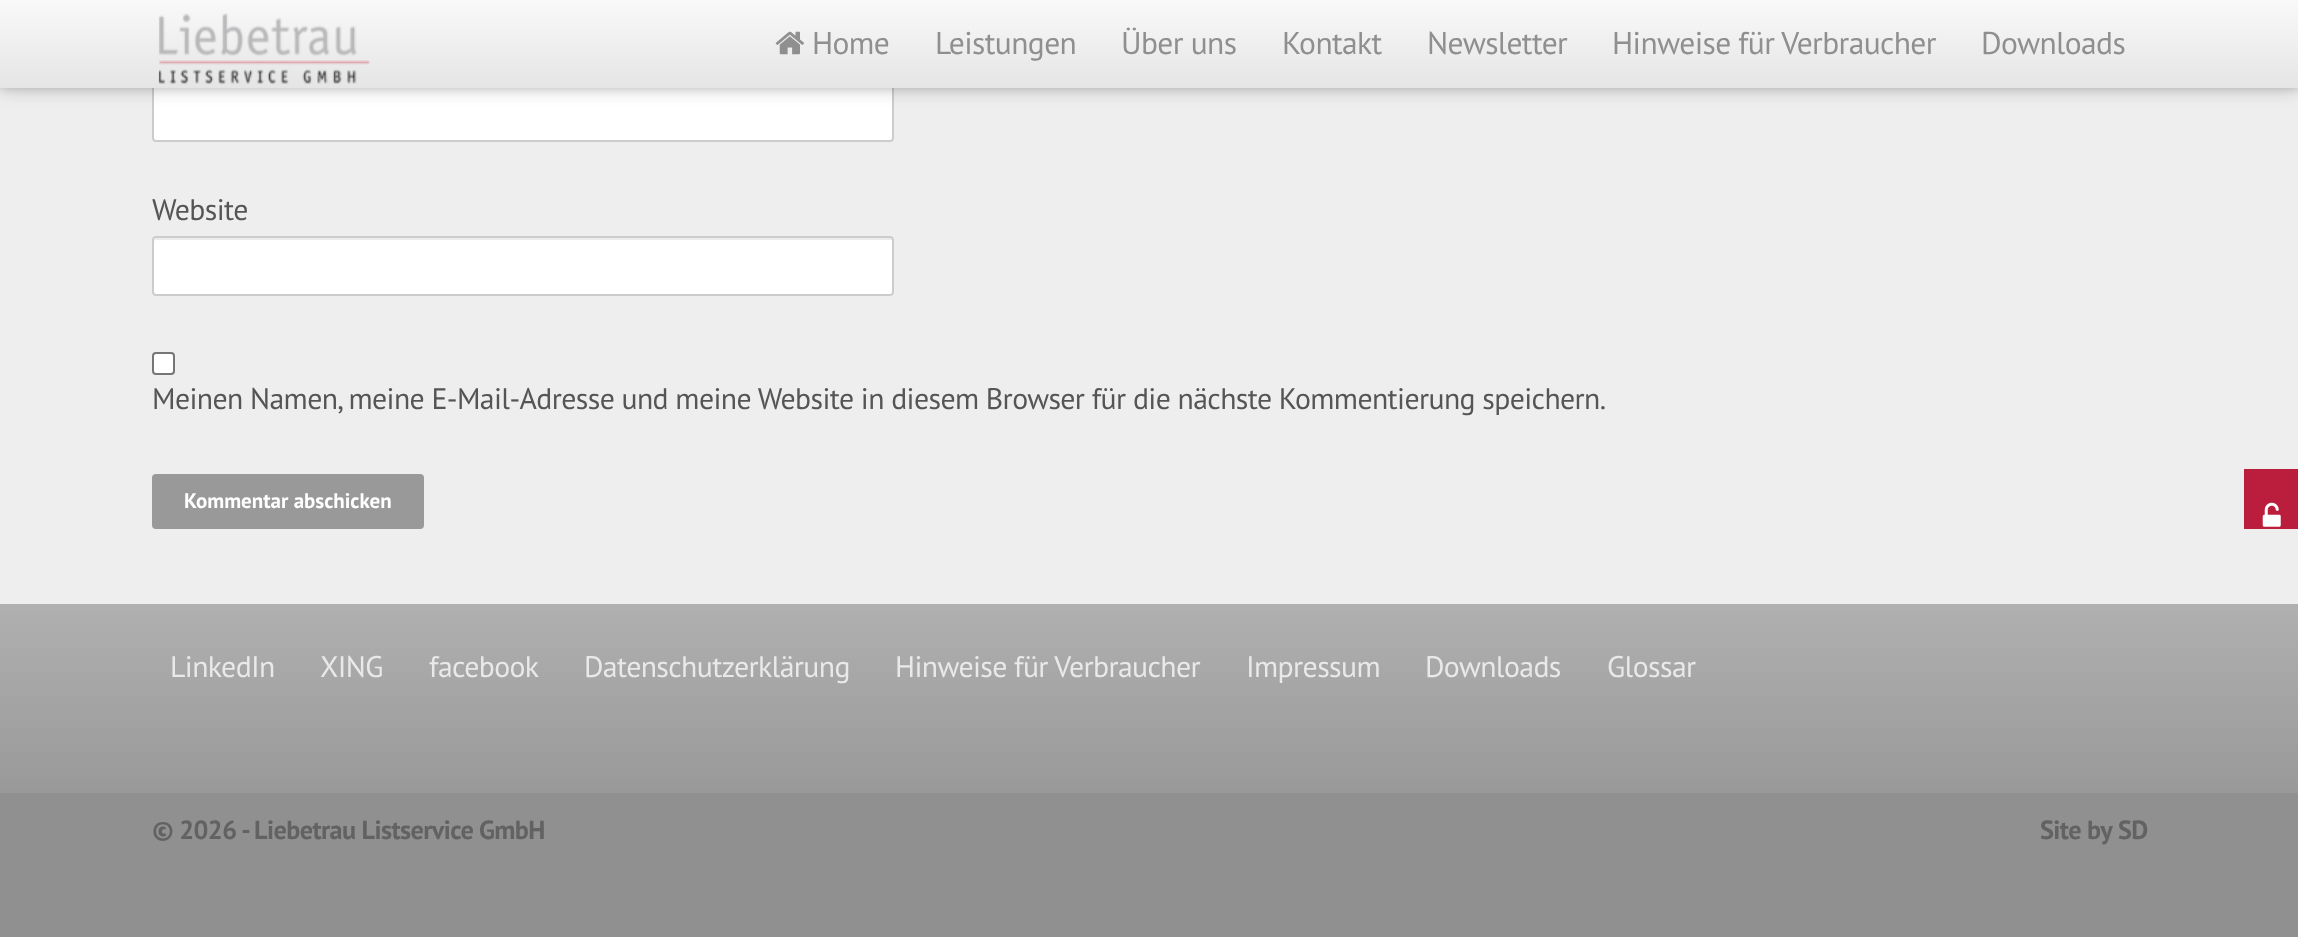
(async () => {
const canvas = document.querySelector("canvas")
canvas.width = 2298
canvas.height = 937
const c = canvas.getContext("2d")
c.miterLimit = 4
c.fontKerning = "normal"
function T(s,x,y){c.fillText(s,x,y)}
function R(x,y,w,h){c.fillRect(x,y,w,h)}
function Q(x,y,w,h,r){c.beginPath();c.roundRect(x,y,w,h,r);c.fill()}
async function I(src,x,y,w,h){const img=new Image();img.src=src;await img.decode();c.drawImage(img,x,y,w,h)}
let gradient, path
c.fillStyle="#909090"
R(0,0,2298,937)
c.fillStyle="#eee"
R(0,88,2298,516)
c.fillStyle="#fff"
c.beginPath()
c.roundRect(153,83,740,58,3)
c.fill()
c.strokeStyle="#ccc"
c.lineWidth=2
c.stroke()
c.fillStyle="#00000033"
c.filter="blur(9px)"
c.beginPath()
c.rect(0,2,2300,87)
c.fill()
c.filter="none"
gradient = c.createLinearGradient(1150,0,1150,88)
gradient.addColorStop(0,"#f9f9f9")
gradient.addColorStop(1,"#e5e5e5")
c.fillStyle = gradient
R(0,0,2298,88)
await I("1.png",158,13,212,71)
await I("2.png",775,31,29,24)
c.letterSpacing="-0.6px"
c.font="31.5px PT Sans"
c.fillStyle="#8f8f8f"
T("Home",812,54)
T("Leistungen",935,54)
T("Über uns",1121,54)
T("Kontakt",1282,54)
T("Newsletter",1427,54)
T("Hinweise für Verbraucher",1612,54)
T("Downloads",1981,54)
c.save()
c.beginPath()
c.rect(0,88,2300,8)
c.clip()
c.fillStyle="#0000001a"
c.filter="blur(3.5px)"
c.beginPath()
c.roundRect(0,81,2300,8,4)
c.fill()
c.filter="none"
c.restore()
c.font="29.75px PT Sans"
c.fillStyle="#555"
T("Website",152,220)
c.fillStyle="#fff"
Q(152,236,742,60,4)
c.fillStyle="#ececec"
path = new Path2D("M156 240h735c1 0 1 1 1 2v52l1-2v-52c0-1-1-2-2-2h-735l-1 1c-1 0-1 2-1 3c0-1 1-2 2-2z")
c.fill(path)
c.beginPath()
c.roundRect(153,237,740,58,3)
c.stroke()
c.fillStyle="#fff"
c.beginPath()
c.roundRect(153,353,21,21,3)
c.fill()
c.strokeStyle="#767676"
c.stroke()
c.fillStyle="#555"
T("Meinen Namen, meine E-Mail-Adresse und meine Website in diesem Browser für die nächste Kommentierung speichern.",152,409)
c.fillStyle="#999"
Q(152,474,272,55,4)
c.letterSpacing="0px"
c.font="bold 21px PT Sans"
c.fillStyle="#fff"
T("Kommentar abschicken",184,508)
gradient = c.createLinearGradient(1150,604,1150,793)
gradient.addColorStop(0,"#b0b0b0")
gradient.addColorStop(1,"#999")
c.fillStyle = gradient
R(0,604,2298,189)
c.letterSpacing="-0.6px"
c.font="29.75px PT Sans"
c.fillStyle="#e9e9e9"
T("LinkedIn",170,677)
T("XING",320,677)
T("facebook",429,677)
T("Datenschutzerklärung",584,677)
T("Hinweise für Verbraucher",895,677)
T("Impressum",1246,677)
T("Downloads",1425,677)
T("Glossar",1607,677)
c.font="bold 26.25px PT Sans"
c.fillStyle="#626262"
T("© 2026 - Liebetrau Listservice GmbH",152,839)
T("Site by",2040,839)
T("SD",2118,839)
c.fillStyle="#bb1e3c"
R(2244,469,54,60)
await I("3.png",2262,502,19,25)
})()
